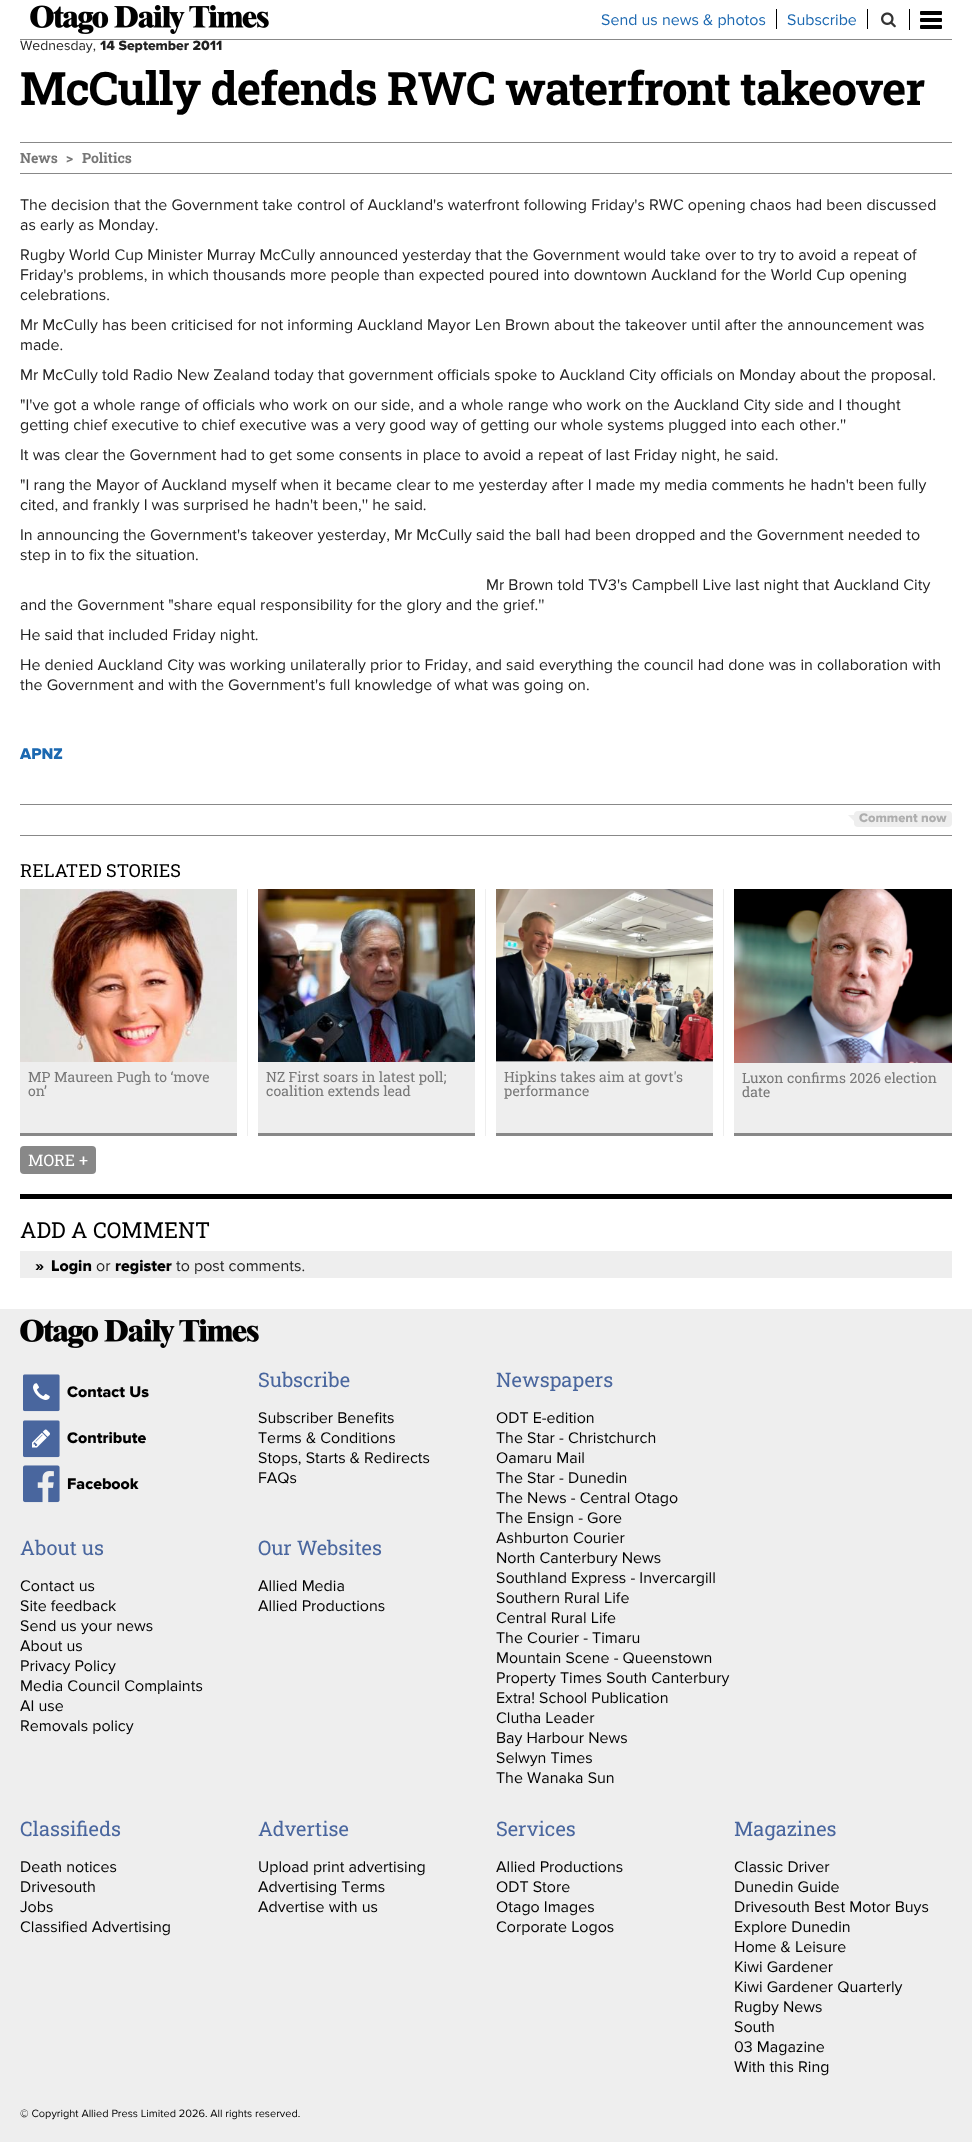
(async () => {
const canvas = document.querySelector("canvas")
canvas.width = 972
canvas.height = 2142
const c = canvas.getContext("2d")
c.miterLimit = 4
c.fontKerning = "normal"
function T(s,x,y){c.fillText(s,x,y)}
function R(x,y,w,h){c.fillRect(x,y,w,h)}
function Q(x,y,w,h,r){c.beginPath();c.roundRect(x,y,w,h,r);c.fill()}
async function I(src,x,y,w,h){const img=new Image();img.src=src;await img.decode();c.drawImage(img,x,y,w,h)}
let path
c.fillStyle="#fff"
R(0,0,972,2142)
c.fillStyle="#888"
R(20,39,932,1)
await I("1.png",30,5,239,29)
c.fillStyle="#000"
R(776,9,1,20)
c.font="16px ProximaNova"
c.fillStyle="#1b68b1"
T("Send us news & photos",601,25)
c.fillStyle="#000"
R(867,9,1,20)
c.fillStyle="#1b68b1"
T("Subscribe",787,25)
c.fillStyle="#000"
R(909,9,1,21)
await I("2.png",881,12,15,16)
Q(920,11,22,4,1)
Q(920,18,22,4,1)
Q(920,25,22,4,1)
c.font="14px ProximaNova"
c.fillStyle="#222"
T("Wednesday,",20,50)
c.font="800 14px ProximaNova"
T("14 September 2011",100,50)
c.letterSpacing="-1px"
c.font="bold 46px Roboto Slab"
c.fillStyle="#000"
T("McCully defends RWC waterfront takeover",20,105)
c.fillStyle="#888"
R(20,142,932,1)
R(20,173,932,1)
c.letterSpacing="0px"
c.font="bold 14px Roboto Slab"
c.fillStyle="#777"
T("News",20,163)
T(">",66,163)
T("Politics",82,163)
c.font="16px ProximaNova"
c.fillStyle="#222"
T("The decision that the Government take control of Auckland's waterfront following Friday's RWC opening chaos had been discussed",20,210)
T("as early as Monday.",20,230)
T("Rugby World Cup Minister Murray McCully announced yesterday that the Government would take over to try to avoid a repeat of",20,260)
T("Friday's problems, in which thousands more people than expected poured into downtown Auckland for the World Cup opening",20,280)
T("celebrations.",20,300)
T("Mr McCully has been criticised for not informing Auckland Mayor Len Brown about the takeover until after the announcement was",20,330)
T("made.",20,350)
T("Mr McCully told Radio New Zealand today that government officials spoke to Auckland City officials on Monday about the proposal.",20,380)
T("\"I've got a whole range of officials who work on our side, and a whole range who work on the Auckland City side and I thought",20,410)
T("getting chief executive to chief executive was a very good way of getting our whole systems plugged into each other.''",20,430)
T("It was clear the Government had to get some consents in place to avoid a repeat of last Friday night, he said.",20,460)
T("\"I rang the Mayor of Auckland myself when it became clear to me yesterday after I made my media comments he hadn't been fully",20,490)
T("cited, and frankly I was surprised he hadn't been,'' he said.",20,510)
T("In announcing the Government's takeover yesterday, Mr McCully said the ball had been dropped and the Government needed to",20,540)
T("step in to fix the situation.",20,560)
T("Mr Brown told TV3's Campbell Live last night that Auckland City",486,590)
T("and the Government \"share equal responsibility for the glory and the grief.''",20,610)
T("He said that included Friday night.",20,640)
T("He denied Auckland City was working unilaterally prior to Friday, and said everything the council had done was in collaboration with",20,670)
T("the Government and with the Government's full knowledge of what was going on.",20,690)
c.font="800 16px ProximaNova"
c.fillStyle="#1b68b1"
T("APNZ",20,759)
c.fillStyle="#888"
R(20,804,932,1)
R(20,835,932,1)
c.fillStyle="#eee"
Q(854,811,98,16,4)
path = new Path2D("M854 815v6l-6-6z")
c.fill(path)
c.font="800 13px ProximaNova"
c.fillStyle="#aeaeae"
T("Comment now",859,822)
c.font="18px Roboto Slab"
c.fillStyle="#000"
T("RELATED STORIES",20,877)
c.fillStyle="#eee"
R(247,889,1,247)
R(20,1062,217,71)
c.fillStyle="#888"
R(20,1133,217,3)
await I("3.png",20,889,217,173)
c.font="14px Roboto Slab"
c.fillStyle="#777"
T("MP Maureen Pugh to ‘move",28,1082)
T("on’",28,1096)
c.fillStyle="#eee"
R(485,889,1,247)
R(258,1062,217,71)
c.fillStyle="#888"
R(258,1133,217,3)
await I("4.png",258,889,217,173)
c.fillStyle="#777"
T("NZ First soars in latest poll;",266,1082)
T("coalition extends lead",266,1096)
c.fillStyle="#eee"
R(723,889,1,247)
R(496,1062,217,71)
c.fillStyle="#888"
R(496,1133,217,3)
await I("5.png",496,889,217,173)
c.fillStyle="#777"
T("Hipkins takes aim at govt's",504,1082)
T("performance",504,1096)
c.fillStyle="#eee"
R(734,1063,218,70)
c.fillStyle="#888"
R(734,1133,218,3)
await I("6.png",734,889,218,174)
c.fillStyle="#777"
T("Luxon confirms 2026 election",742,1083)
T("date",742,1097)
c.fillStyle="#888"
Q(20,1146,76,28,4)
c.font="16px Roboto Slab"
c.fillStyle="#fff"
T("MORE +",28,1166)
c.fillStyle="#000"
R(20,1194,932,5)
c.font="22px Roboto Slab"
T("ADD A COMMENT",20,1238)
c.fillStyle="#eee"
R(20,1251,932,27)
c.font="800 16px ProximaNova"
c.fillStyle="#000"
T("»",35,1271)
T("Login",51,1271)
c.font="16px ProximaNova"
c.fillStyle="#222"
T("or",96,1271)
c.font="800 16px ProximaNova"
c.fillStyle="#000"
T("register",115,1271)
c.font="16px ProximaNova"
c.fillStyle="#222"
T("to post comments.",176,1271)
c.fillStyle="#eee"
R(0,1309,972,833)
await I("7.png",20,1319,239,29)
await I("8.png",23,1374,37,38)
await I("9.png",33,1383,17,17)
c.font="800 16px ProximaNova"
c.fillStyle="#000"
T("Contact Us",67,1397)
await I("8.png",23,1420,37,38)
await I("10.png",32,1429,18,19)
T("Contribute",67,1443)
await I("11.png",23,1465,37,38)
T("Facebook",67,1489)
c.font="20px Roboto Slab"
c.fillStyle="#49669e"
T("Subscribe",258,1387)
c.font="16px ProximaNova"
c.fillStyle="#000"
T("Subscriber Benefits",258,1423)
T("Terms & Conditions",258,1443)
T("Stops, Starts & Redirects",258,1463)
T("FAQs",258,1483)
c.font="20px Roboto Slab"
c.fillStyle="#49669e"
T("About us",20,1555)
c.font="16px ProximaNova"
c.fillStyle="#000"
T("Contact us",20,1591)
T("Site feedback",20,1611)
T("Send us your news",20,1631)
T("About us",20,1651)
T("Privacy Policy",20,1671)
T("Media Council Complaints",20,1691)
T("AI use",20,1711)
T("Removals policy",20,1731)
c.font="20px Roboto Slab"
c.fillStyle="#49669e"
T("Our Websites",258,1555)
c.font="16px ProximaNova"
c.fillStyle="#000"
T("Allied Media",258,1591)
T("Allied Productions",258,1611)
c.font="20px Roboto Slab"
c.fillStyle="#49669e"
T("Newspapers",496,1387)
c.font="16px ProximaNova"
c.fillStyle="#000"
T("ODT E-edition",496,1423)
T("The Star - Christchurch",496,1443)
T("Oamaru Mail",496,1463)
T("The Star - Dunedin",496,1483)
T("The News - Central Otago",496,1503)
T("The Ensign - Gore",496,1523)
T("Ashburton Courier",496,1543)
T("North Canterbury News",496,1563)
T("Southland Express - Invercargill",496,1583)
T("Southern Rural Life",496,1603)
T("Central Rural Life",496,1623)
T("The Courier - Timaru",496,1643)
T("Mountain Scene - Queenstown",496,1663)
T("Property Times South Canterbury",496,1683)
T("Extra! School Publication",496,1703)
T("Clutha Leader",496,1723)
T("Bay Harbour News",496,1743)
T("Selwyn Times",496,1763)
T("The Wanaka Sun",496,1783)
c.font="20px Roboto Slab"
c.fillStyle="#49669e"
T("Classifieds",20,1836)
c.font="16px ProximaNova"
c.fillStyle="#000"
T("Death notices",20,1872)
T("Drivesouth",20,1892)
T("Jobs",20,1912)
T("Classified Advertising",20,1932)
c.font="20px Roboto Slab"
c.fillStyle="#49669e"
T("Advertise",258,1836)
c.font="16px ProximaNova"
c.fillStyle="#000"
T("Upload print advertising",258,1872)
T("Advertising Terms",258,1892)
T("Advertise with us",258,1912)
c.font="20px Roboto Slab"
c.fillStyle="#49669e"
T("Services",496,1836)
c.font="16px ProximaNova"
c.fillStyle="#000"
T("Allied Productions",496,1872)
T("ODT Store",496,1892)
T("Otago Images",496,1912)
T("Corporate Logos",496,1932)
c.font="20px Roboto Slab"
c.fillStyle="#49669e"
T("Magazines",734,1836)
c.font="16px ProximaNova"
c.fillStyle="#000"
T("Classic Driver",734,1872)
T("Dunedin Guide",734,1892)
T("Drivesouth Best Motor Buys",734,1912)
T("Explore Dunedin",734,1932)
T("Home & Leisure",734,1952)
T("Kiwi Gardener",734,1972)
T("Kiwi Gardener Quarterly",734,1992)
T("Rugby News",734,2012)
T("South",734,2032)
T("03 Magazine",734,2052)
T("With this Ring",734,2072)
c.font="11px ProximaNova"
T("© Copyright Allied Press Limited 2026. All rights reserved.",20,2117)
})()
